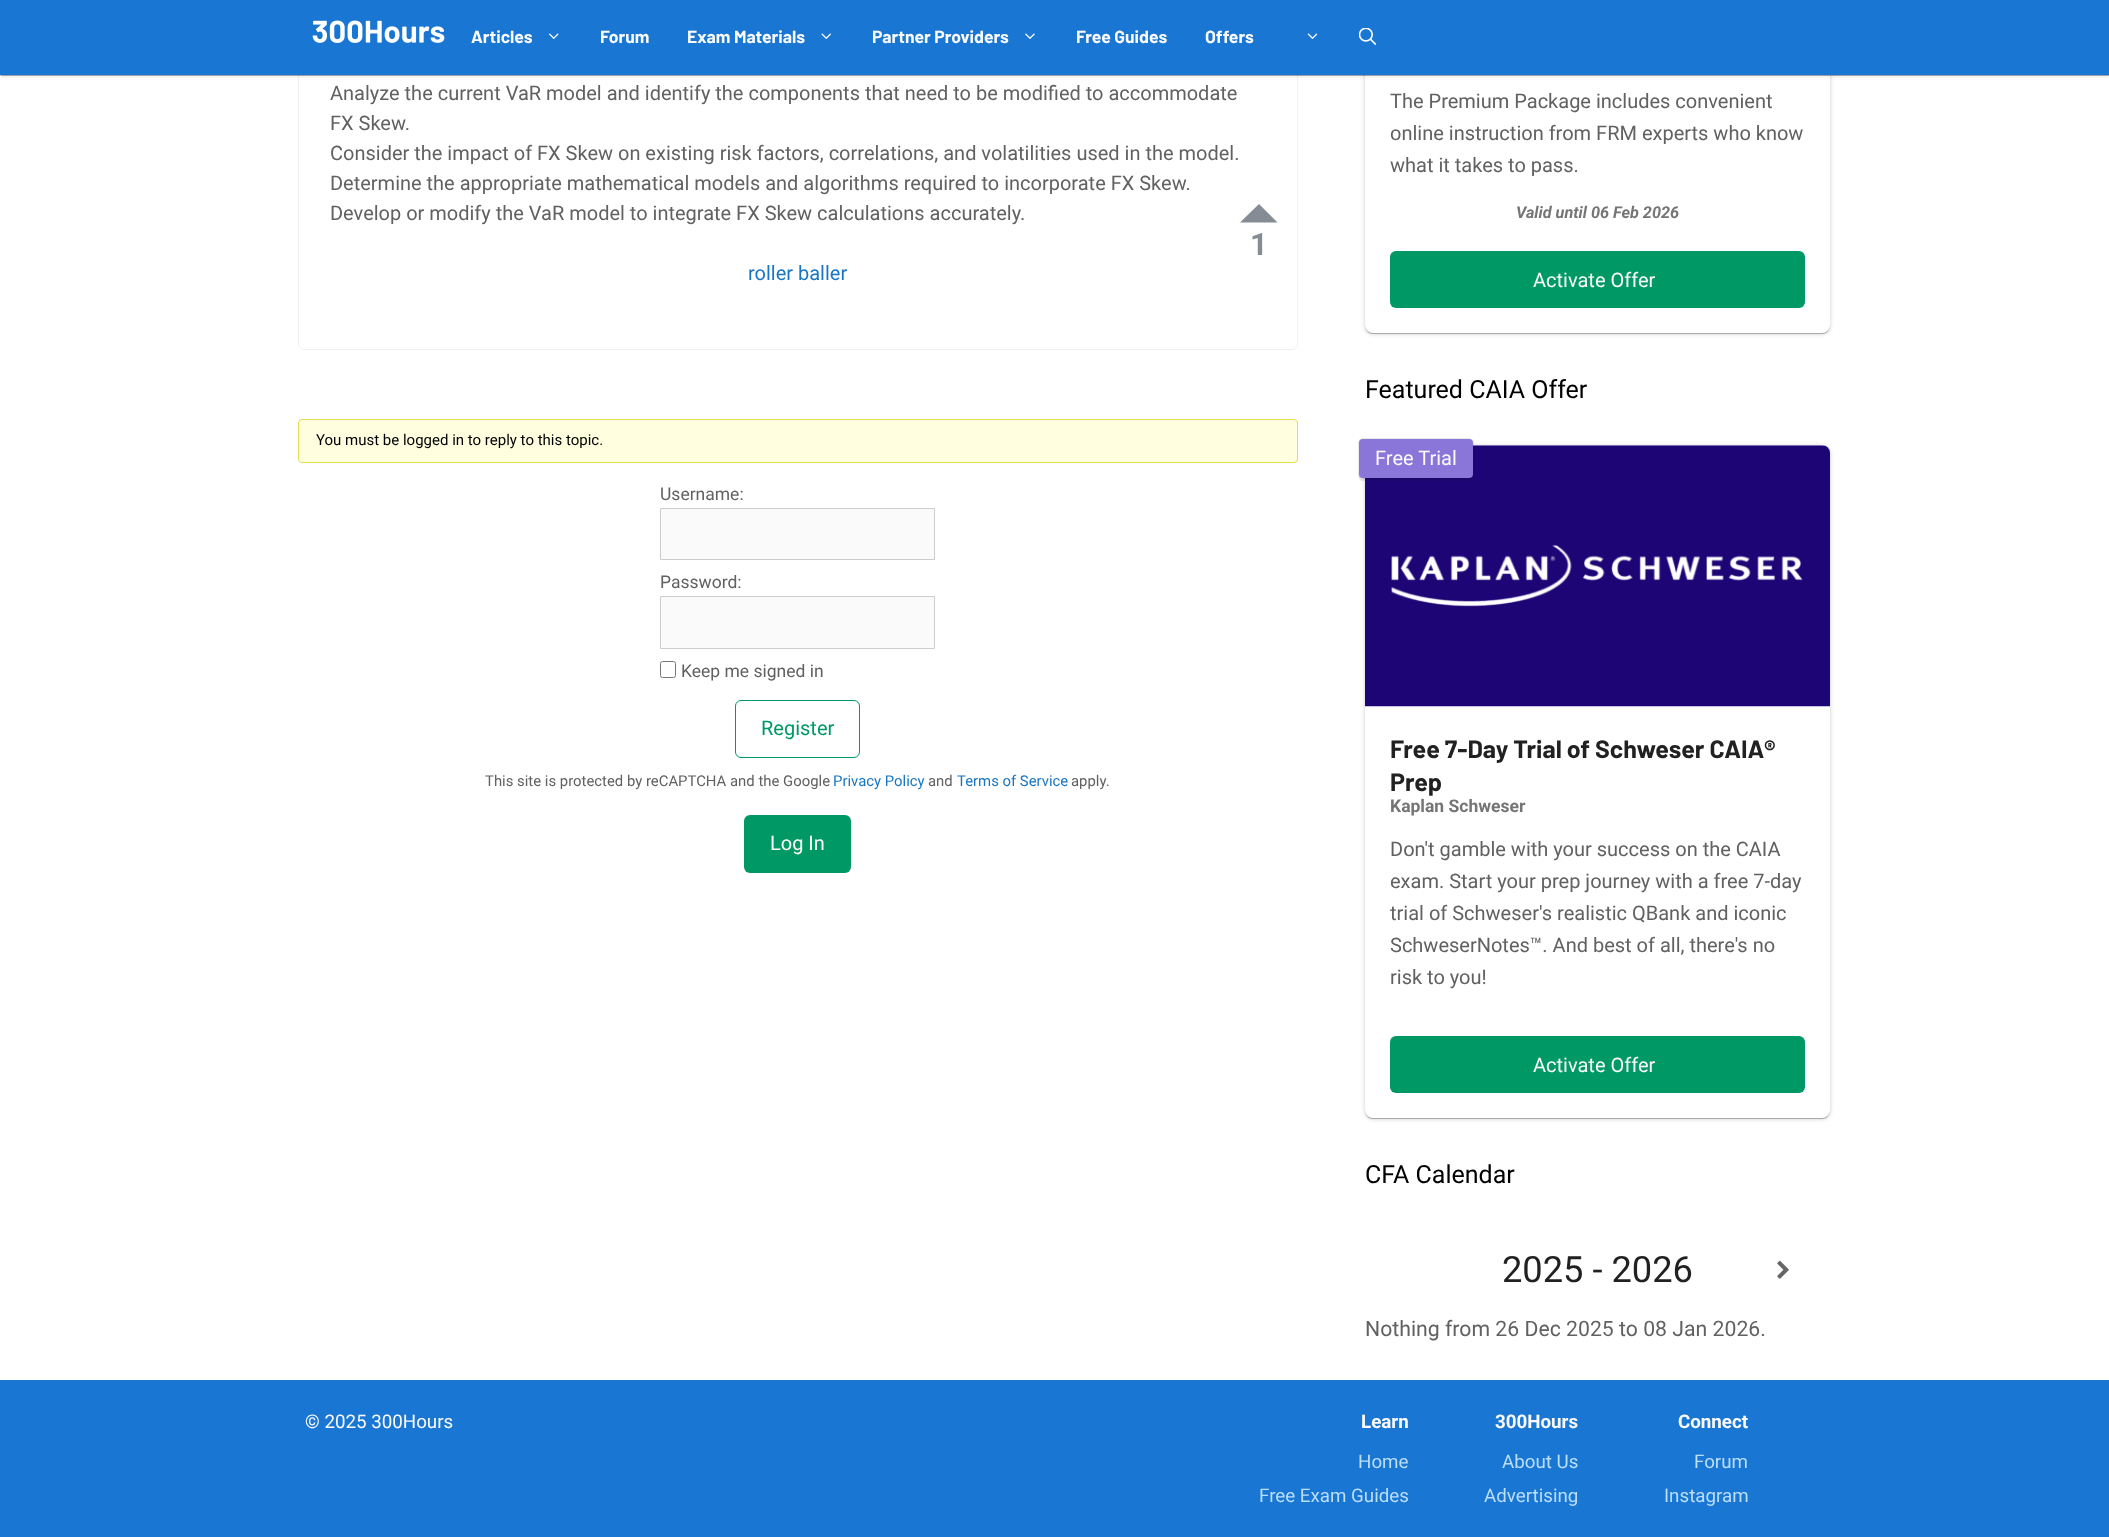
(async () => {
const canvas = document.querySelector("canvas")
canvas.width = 2109
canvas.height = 1537
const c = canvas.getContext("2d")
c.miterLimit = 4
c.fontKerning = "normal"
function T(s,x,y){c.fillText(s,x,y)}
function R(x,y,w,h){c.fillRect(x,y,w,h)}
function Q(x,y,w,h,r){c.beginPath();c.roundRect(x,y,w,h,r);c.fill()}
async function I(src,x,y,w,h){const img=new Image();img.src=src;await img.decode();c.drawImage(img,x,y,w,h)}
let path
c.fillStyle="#fff"
R(0,0,2109,1537)
c.beginPath()
c.roundRect(298.5,-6.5,999,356,5.5)
c.strokeStyle="#f2f2f2"
c.stroke()
c.fillStyle="#0000001f"
c.filter="blur(0.5px)"
c.beginPath()
c.roundRect(1366,-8,463,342,6)
c.fill()
c.filter="none"
c.fillStyle="#00000024"
c.filter="blur(0.5px)"
c.beginPath()
c.roundRect(1365,-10,465,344,8)
c.fill()
c.filter="none"
c.fillStyle="#00000033"
c.filter="blur(2px)"
c.beginPath()
c.roundRect(1365,-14,465,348,8)
c.fill()
c.filter="none"
c.fillStyle="#fff"
Q(1365,-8,465,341,8)
c.fillStyle="#0000001f"
c.filter="blur(2px)"
c.beginPath()
c.rect(0,1,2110,75)
c.fill()
c.filter="none"
c.fillStyle="#00000024"
c.filter="blur(0.5px)"
c.beginPath()
c.rect(0,1,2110,75)
c.fill()
c.filter="none"
c.fillStyle="#00000033"
c.filter="blur(0.5px)"
c.beginPath()
c.rect(1,4,2108,72)
c.fill()
c.filter="none"
c.fillStyle="#1976d2"
R(0,0,2109,75)
await I("1.png",312,20,133,23)
c.font="bold 17.5px 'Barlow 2'"
c.fillStyle="#fafafa"
T("Articles",471,43)
await I("2.png",548,33,11,6)
T("Forum",600,43)
T("Exam Materials",687,43)
await I("3.png",821,33,10,6)
T("Partner Providers",872,43)
await I("4.png",1025,33,10,6)
T("Free Guides",1076,43)
T("Offers",1205,43)
await I("5.png",1307,33,11,6)
await I("6.png",1359,28,17,17)
c.font="20px 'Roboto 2'"
c.fillStyle="#616161"
T("Analyze the current VaR model and identify the components that need to be modified to accommodate",330,100)
T("FX Skew.",330,130)
T("Consider the impact of FX Skew on existing risk factors, correlations, and volatilities used in the model.",330,160)
T("Determine the appropriate mathematical models and algorithms required to incorporate FX Skew.",330,190)
T("Develop or modify the VaR model to integrate FX Skew calculations accurately.",330,220)
c.fillStyle="#858c93"
path = new Path2D("M1277.5 222.5h-37.5l19-18.5z")
c.fill(path)
c.font="bold 31px Roboto"
T("1",1250,255)
c.font="20px 'Roboto 2'"
c.fillStyle="#1976c2"
T("roller baller",748,280)
c.fillStyle="#ffffe0"
c.beginPath()
c.roundRect(298.5,419.5,999,43,3.5)
c.fill()
c.strokeStyle="#e6db55"
c.stroke()
c.font="15px Roboto"
c.fillStyle="#000"
T("You must be logged in to reply to this topic.",316,445)
c.font="17.5px Roboto"
c.fillStyle="#616161"
T("Username:",660,500)
c.fillStyle="#fafafa"
c.beginPath()
c.rect(660.5,508.5,274,51)
c.fill()
c.strokeStyle="#ccc"
c.stroke()
c.fillStyle="#616161"
T("Password:",660,588)
c.fillStyle="#fafafa"
c.beginPath()
c.rect(660.5,596.5,274,52)
c.fill()
c.stroke()
c.beginPath()
c.roundRect(660.5,661.5,15,16,2)
c.strokeStyle="#767676"
c.stroke()
c.fillStyle="#616161"
T("Keep me signed in",681,677)
c.beginPath()
c.roundRect(735.5,700.5,124,57,5.5)
c.strokeStyle="#096"
c.stroke()
c.font="20px Roboto"
c.fillStyle="#096"
T("Register",761,735)
c.font="14.9px 'Roboto 2'"
c.fillStyle="#616161"
T("This site is protected by reCAPTCHA and the Google",485,786)
c.fillStyle="#1976c2"
T("Privacy Policy",833,786)
c.fillStyle="#616161"
T("and",928,786)
c.fillStyle="#1976c2"
T("Terms of Service",957,786)
c.fillStyle="#616161"
T("apply.",1071,786)
c.fillStyle="#096"
Q(744,815,107,58,6)
c.font="20px Roboto"
c.fillStyle="#fafafa"
T("Log In",770,850)
c.fillStyle="#616161"
T("The Premium Package includes convenient",1390,108)
T("online instruction from FRM experts who know",1390,140)
T("what it takes to pass.",1390,172)
c.font="italic bold 16.25px Roboto"
c.fillStyle="#757575"
T("Valid until 06 Feb 2026",1516,218)
c.fillStyle="#096"
Q(1390,251,415,57,6)
c.font="20px Roboto"
c.fillStyle="#fafafa"
T("Activate Offer",1533,287)
c.font="25px Roboto"
c.fillStyle="#000"
T("Featured CAIA Offer",1365,398)
c.fillStyle="#0000001f"
c.filter="blur(0.5px)"
c.beginPath()
c.roundRect(1366,449,463,670,6)
c.fill()
c.filter="none"
c.fillStyle="#00000024"
c.filter="blur(0.5px)"
c.beginPath()
c.roundRect(1365,446,465,673,8)
c.fill()
c.filter="none"
c.fillStyle="#00000033"
c.filter="blur(2px)"
c.beginPath()
c.roundRect(1365,446,465,673,8)
c.fill()
c.filter="none"
c.fillStyle="#fff"
Q(1365,445,465,673,8)
await I("7.png",1365,445,465,262)
c.fillStyle="#14171c1a"
c.filter="blur(0.5px)"
c.beginPath()
c.roundRect(1359,443,114,38,4)
c.fill()
c.filter="none"
c.filter="blur(0.5px)"
c.beginPath()
c.roundRect(1358,438,116,41,5)
c.fill()
c.filter="none"
c.fillStyle="#8a75d9"
Q(1359,439,114,39,4)
c.font="20px Roboto"
c.fillStyle="#fafafa"
T("Free Trial",1375,465)
c.font="bold 25px Barlow"
c.fillStyle="#212121"
T("Free 7-Day Trial of Schweser CAIA®",1390,758)
T("Prep",1390,791)
c.font="bold 17.5px Roboto"
c.fillStyle="#757575"
T("Kaplan Schweser",1390,812)
c.font="20px Roboto"
c.fillStyle="#616161"
T("Don't gamble with your success on the CAIA",1390,856)
T("exam. Start your prep journey with a free 7-day",1390,888)
T("trial of Schweser's realistic QBank and iconic",1390,920)
T("SchweserNotes™. And best of all, there's no",1390,952)
T("risk to you!",1390,984)
c.fillStyle="#096"
Q(1390,1036,415,57,6)
c.fillStyle="#fafafa"
T("Activate Offer",1533,1072)
c.font="25px Roboto"
c.fillStyle="#000"
T("CFA Calendar",1365,1183)
c.font="36.25px Roboto"
c.fillStyle="#212121"
T("2025 - 2026",1502,1282)
await I("8.png",1777,1260,12,19)
c.font="21.25px 'Roboto 2'"
c.fillStyle="#616161"
T("Nothing from 26 Dec 2025 to 08 Jan 2026.",1365,1336)
c.fillStyle="#1976d2"
R(0,1380,2109,157)
c.font="18.75px Roboto"
c.fillStyle="#fafafa"
T("© 2025 300Hours",305,1428)
c.font="bold 18.75px Roboto"
T("Learn",1361,1428)
c.font="18.75px Roboto"
c.fillStyle="#bbdefb"
T("Home",1358,1468)
T("Free Exam Guides",1259,1502)
c.font="bold 18.75px Roboto"
c.fillStyle="#fafafa"
T("300Hours",1495,1428)
c.font="18.75px Roboto"
c.fillStyle="#bbdefb"
T("About Us",1502,1468)
T("Advertising",1484,1502)
c.font="bold 18.75px Roboto"
c.fillStyle="#fafafa"
T("Connect",1678,1428)
c.font="18.75px Roboto"
c.fillStyle="#bbdefb"
T("Forum",1694,1468)
T("Instagram",1664,1502)
})()
